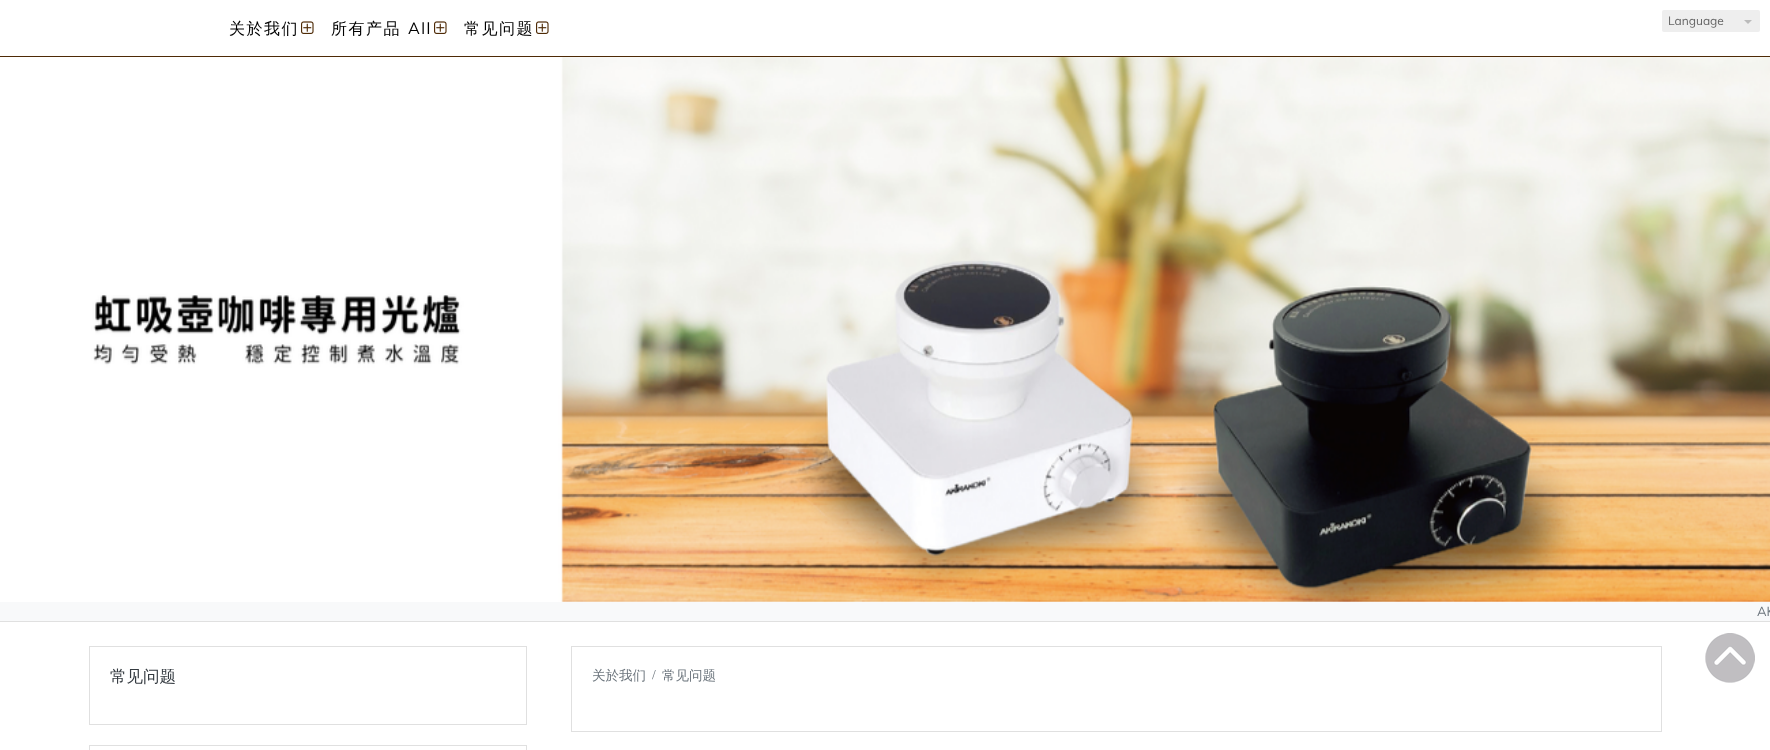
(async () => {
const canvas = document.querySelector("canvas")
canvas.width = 1770
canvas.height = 750
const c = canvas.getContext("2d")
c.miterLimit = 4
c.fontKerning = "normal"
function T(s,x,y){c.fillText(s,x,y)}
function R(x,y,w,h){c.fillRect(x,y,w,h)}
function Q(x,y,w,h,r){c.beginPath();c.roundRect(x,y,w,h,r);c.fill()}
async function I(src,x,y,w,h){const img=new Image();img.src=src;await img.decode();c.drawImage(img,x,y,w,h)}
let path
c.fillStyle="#fff"
R(0,0,1770,750)
c.fillStyle="#4e2a06"
R(0,56,1770,1)
c.letterSpacing="1.5px"
c.font="500 16px WenQuanYi Zen Hei"
c.fillStyle="#000"
T("关於我们",229,34)
await I("1.png",301,21,13,13)
T("所有产品",331,34)
c.font="16px Muli"
T("All",408,34)
await I("1.png",434,21,13,13)
c.font="500 16px WenQuanYi Zen Hei"
T("常见问题",464,34)
await I("1.png",536,21,13,13)
c.fillStyle="#eee"
Q(1662,10,98,22,2)
c.letterSpacing="0px"
c.font="12px Muli"
c.fillStyle="#666"
T("Language",1668,25)
c.fillStyle="#bbb"
path = new Path2D("M1744 20h8l-4 4z")
c.fill(path)
await I("2.png",0,57,1770,545)
await I("3.png",1705,633,50,50)
c.strokeStyle="#e0e0e0"
c.strokeRect(89.5,745.5,437,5)
c.strokeRect(89.5,646.5,437,78)
c.font="500 16.5px WenQuanYi Zen Hei"
c.fillStyle="#343a40"
T("常见问题",110,682)
c.strokeRect(571.5,646.5,1090,85)
c.fillStyle="#f8f9fa"
R(0,602,1770,19)
c.fillStyle="#e0e0e0"
R(0,621,1770,1)
c.font="13px Muli"
c.fillStyle="#6c757d"
T("AK",1757,616)
c.font="500 13.5px WenQuanYi Zen Hei"
T("关於我们",592,680)
c.font="13.5px Liberation Serif"
T("/",652,679)
c.font="500 13.5px WenQuanYi Zen Hei"
T("常见问题",662,680)
})()
